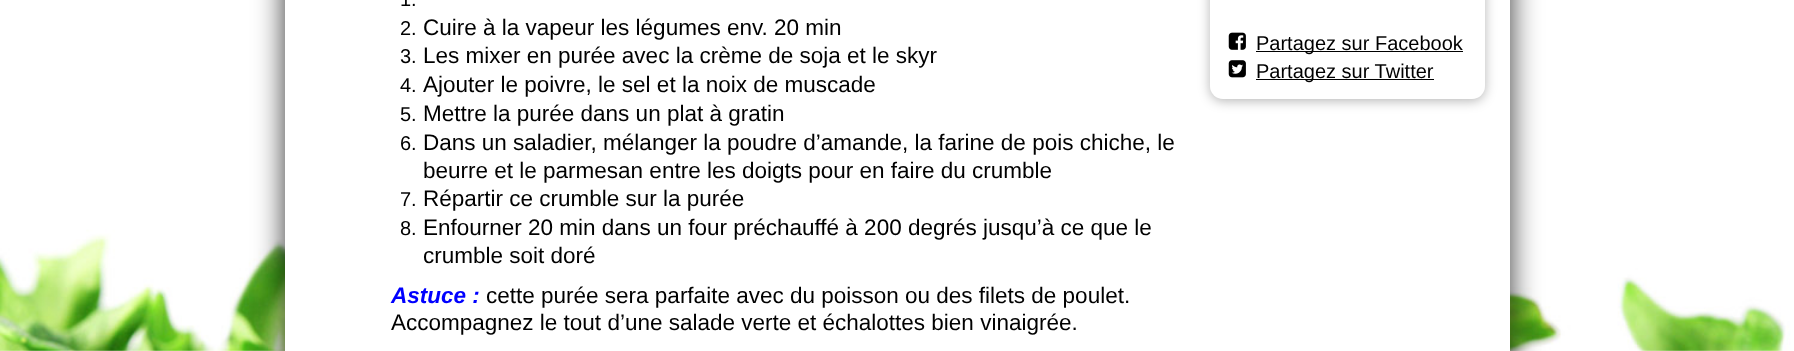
(async () => {
const canvas = document.querySelector("canvas")
canvas.width = 1794
canvas.height = 351
const c = canvas.getContext("2d")
c.miterLimit = 4
c.fontKerning = "normal"
function T(s,x,y){c.fillText(s,x,y)}
function R(x,y,w,h){c.fillRect(x,y,w,h)}
function Q(x,y,w,h,r){c.beginPath();c.roundRect(x,y,w,h,r);c.fill()}
async function I(src,x,y,w,h){const img=new Image();img.src=src;await img.decode();c.drawImage(img,x,y,w,h)}
c.fillStyle="#fff"
R(0,0,1794,351)
await I("1.png",0,0,1794,351)
c.fillStyle="#000000cc"
c.filter="blur(15px)"
c.beginPath()
c.roundRect(285,-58,1225,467,13)
c.fill()
c.filter="none"
c.fillStyle="#fff"
R(285,0,1225,351)
c.font="20px Liberation Sans"
c.fillStyle="#000"
T("1.",400,6)
T("2.",400,35)
c.font="22.5px Liberation Sans"
T("Cuire à la vapeur les légumes env. 20 min",423,35)
c.font="20px Liberation Sans"
T("3.",400,63)
c.font="22.5px Liberation Sans"
T("Les mixer en purée avec la crème de soja et le skyr",423,63)
c.font="20px Liberation Sans"
T("4.",400,92)
c.font="22.5px Liberation Sans"
T("Ajouter le poivre, le sel et la noix de muscade",423,92)
c.font="20px Liberation Sans"
T("5.",400,121)
c.font="22.5px Liberation Sans"
T("Mettre la purée dans un plat à gratin",423,121)
c.font="20px Liberation Sans"
T("6.",400,150)
c.font="22.5px Liberation Sans"
T("Dans un saladier, mélanger la poudre d’amande, la farine de pois chiche, le",423,150)
T("beurre et le parmesan entre les doigts pour en faire du crumble",423,178)
c.font="20px Liberation Sans"
T("7.",400,206)
c.font="22.5px Liberation Sans"
T("Répartir ce crumble sur la purée",423,206)
c.font="20px Liberation Sans"
T("8.",400,235)
c.font="22.5px Liberation Sans"
T("Enfourner 20 min dans un four préchauffé à 200 degrés jusqu’à ce que le",423,235)
T("crumble soit doré",423,263)
c.font="italic bold 22.5px Liberation Sans"
c.fillStyle="#00f"
T("Astuce :",391,303)
c.font="22.5px Liberation Sans"
c.fillStyle="#000"
T("cette purée sera parfaite avec du poisson ou des filets de poulet.",486,303)
T("Accompagnez le tout d’une salade verte et échalottes bien vinaigrée.",391,330)
c.fillStyle="#0000004a"
c.filter="blur(6px)"
c.beginPath()
c.roundRect(1210,-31,275,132,13)
c.fill()
c.filter="none"
c.fillStyle="#fff"
Q(1210,-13,275,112,13)
await I("2.png",1228,32,18,18)
c.fillStyle="#000"
R(1256,51,207,1)
c.font="20px Liberation Sans"
T("Partagez sur Facebook",1256,50)
await I("3.png",1228,60,18,18)
R(1256,79,178,1)
T("Partagez sur Twitter",1256,78)
})()
